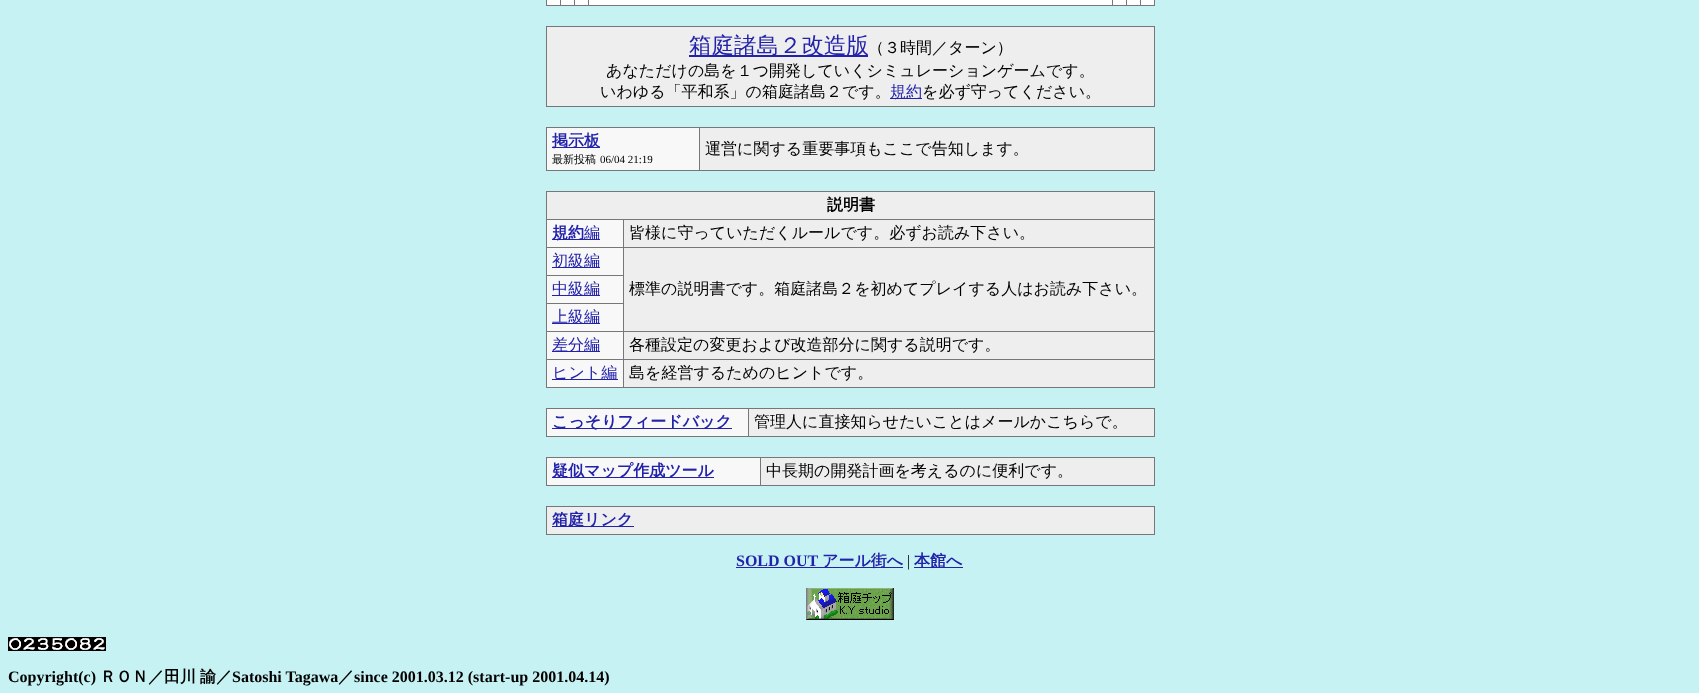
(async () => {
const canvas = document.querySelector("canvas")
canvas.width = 1699
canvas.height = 693
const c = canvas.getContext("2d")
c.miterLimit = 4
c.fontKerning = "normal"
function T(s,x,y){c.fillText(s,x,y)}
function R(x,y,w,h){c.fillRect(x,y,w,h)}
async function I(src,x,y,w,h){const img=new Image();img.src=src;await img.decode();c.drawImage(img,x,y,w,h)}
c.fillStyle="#c6f2f4"
R(0,0,1699,693)
c.fillStyle="#777"
R(1154,0,1,6)
R(546,5,609,1)
R(546,0,1,6)
c.fillStyle="#fff"
R(547,0,607,5)
c.fillStyle="#777"
R(560,0,1,6)
R(574,0,1,6)
R(588,0,1,6)
R(1112,0,1,6)
R(1126,0,1,6)
R(1140,0,1,6)
R(546,26,609,1)
R(1154,26,1,81)
R(546,106,609,1)
R(546,26,1,81)
c.fillStyle="#eee"
R(547,27,607,79)
c.fillStyle="#22a"
R(689,55,179,2)
c.font="500 22.5px WenQuanYi Zen Hei"
T("箱庭諸島２改造版",689,53)
c.font="500 16px WenQuanYi Zen Hei"
c.fillStyle="#000"
T("（３時間／ターン）",868,53)
T("あなただけの島を１つ開発していくシミュレーションゲームです。",606,76)
T("いわゆる「平和系」の箱庭諸島２です。",600,97)
c.fillStyle="#22a"
R(890,98,32,1)
T("規約",890,97)
c.fillStyle="#000"
T("を必ず守ってください。",922,97)
c.fillStyle="#777"
R(546,127,609,1)
R(1154,127,1,44)
R(546,170,609,1)
R(546,127,1,44)
c.fillStyle="#eee"
R(700,128,454,42)
c.fillStyle="#f8f8f8"
R(547,128,152,42)
c.fillStyle="#22a"
R(552,147,48,1)
c.font="bold 16px WenQuanYi Zen Hei"
T("掲示板",552,146)
c.font="500 11px WenQuanYi Zen Hei"
c.fillStyle="#000"
T("最新投稿",552,163)
c.font="11px Liberation Serif"
T("06/04 21:19",600,163)
c.fillStyle="#777"
R(699,127,1,44)
c.font="500 16px WenQuanYi Zen Hei"
c.fillStyle="#000"
T("運営に関する重要事項もここで告知します。",705,154)
c.fillStyle="#777"
R(546,191,609,1)
R(1154,191,1,197)
R(546,387,609,1)
R(546,191,1,197)
c.fillStyle="#eee"
R(547,192,607,27)
c.font="bold 16px WenQuanYi Zen Hei"
c.fillStyle="#000"
T("説明書",827,210)
c.fillStyle="#eee"
R(624,220,530,27)
c.fillStyle="#f8f8f8"
R(547,220,76,27)
c.fillStyle="#777"
R(623,219,532,1)
R(623,247,532,1)
R(546,275,78,1)
R(546,303,78,1)
R(623,331,532,1)
R(623,359,532,1)
R(623,359,1,29)
R(546,359,78,1)
R(623,331,1,29)
R(546,331,78,1)
R(623,247,1,85)
R(546,247,78,1)
R(623,219,1,29)
R(546,219,78,1)
c.fillStyle="#22a"
R(552,239,48,1)
T("規約",552,238)
c.font="500 16px WenQuanYi Zen Hei"
T("編",584,238)
c.fillStyle="#000"
T("皆様に守っていただくルールです。必ずお読み下さい。",629,238)
c.fillStyle="#eee"
R(624,248,530,83)
c.fillStyle="#f8f8f8"
R(547,248,76,27)
c.fillStyle="#22a"
R(552,267,48,1)
T("初級編",552,266)
c.fillStyle="#000"
T("標準の説明書です。箱庭諸島２を初めてプレイする人はお読み下さい。",629,294)
c.fillStyle="#f8f8f8"
R(547,276,76,27)
c.fillStyle="#22a"
R(552,295,48,1)
T("中級編",552,294)
c.fillStyle="#f8f8f8"
R(547,304,76,27)
c.fillStyle="#22a"
R(552,323,48,1)
T("上級編",552,322)
c.fillStyle="#eee"
R(624,332,530,27)
c.fillStyle="#f8f8f8"
R(547,332,76,27)
c.fillStyle="#22a"
R(552,351,48,1)
T("差分編",552,350)
c.fillStyle="#000"
T("各種設定の変更および改造部分に関する説明です。",629,350)
c.fillStyle="#eee"
R(624,360,530,27)
c.fillStyle="#f8f8f8"
R(547,360,76,27)
c.fillStyle="#22a"
R(552,379,66,1)
T("ヒント編",552,378)
c.fillStyle="#000"
T("島を経営するためのヒントです。",629,378)
c.fillStyle="#777"
R(546,408,609,1)
R(1154,408,1,29)
R(546,436,609,1)
R(546,408,1,29)
c.fillStyle="#eee"
R(749,409,405,27)
c.fillStyle="#f8f8f8"
R(547,409,201,27)
c.fillStyle="#22a"
R(552,428,180,1)
c.font="bold 16px WenQuanYi Zen Hei"
T("こっそりフィードバック",552,427)
c.fillStyle="#777"
R(748,408,1,29)
c.font="500 16px WenQuanYi Zen Hei"
c.fillStyle="#000"
T("管理人に直接知らせたいことはメールかこちらで。",754,427)
c.fillStyle="#777"
R(546,457,609,1)
R(1154,457,1,29)
R(546,485,609,1)
R(546,457,1,29)
c.fillStyle="#eee"
R(761,458,393,27)
c.fillStyle="#f8f8f8"
R(547,458,213,27)
c.fillStyle="#22a"
R(552,477,162,1)
c.font="bold 16px WenQuanYi Zen Hei"
T("疑似マップ作成ツール",552,476)
c.fillStyle="#777"
R(760,457,1,29)
c.font="500 16px WenQuanYi Zen Hei"
c.fillStyle="#000"
T("中長期の開発計画を考えるのに便利です。",766,476)
c.fillStyle="#777"
R(546,506,609,1)
R(1154,506,1,29)
R(546,534,609,1)
R(546,506,1,29)
c.fillStyle="#eee"
R(547,507,607,27)
c.fillStyle="#22a"
R(552,526,82,1)
c.font="bold 16px WenQuanYi Zen Hei"
T("箱庭リンク",552,525)
c.font="bold 16px Liberation Serif"
T("SOLD OUT",736,566)
R(736,567,167,1)
c.font="bold 16px WenQuanYi Zen Hei"
T("アール街へ",822,566)
c.font="16px Liberation Serif"
c.fillStyle="#000"
T("|",907,566)
c.fillStyle="#22a"
R(914,567,49,1)
c.font="bold 16px WenQuanYi Zen Hei"
T("本館へ",914,566)
await I("1.png",806,588,88,32)
await I("2.png",8,637,98,14)
c.font="bold 16px Liberation Serif"
c.fillStyle="#000"
T("Copyright(c)",8,682)
c.font="bold 16px WenQuanYi Zen Hei"
T("ＲＯＮ／田川",100,682)
T("諭／",200,682)
c.font="bold 16px Liberation Serif"
T("Satoshi Tagawa",232,682)
c.font="bold 16px WenQuanYi Zen Hei"
T("／",338,682)
c.font="bold 16px Liberation Serif"
T("since 2001.03.12 (start-up 2001.04.14)",354,682)
})()
